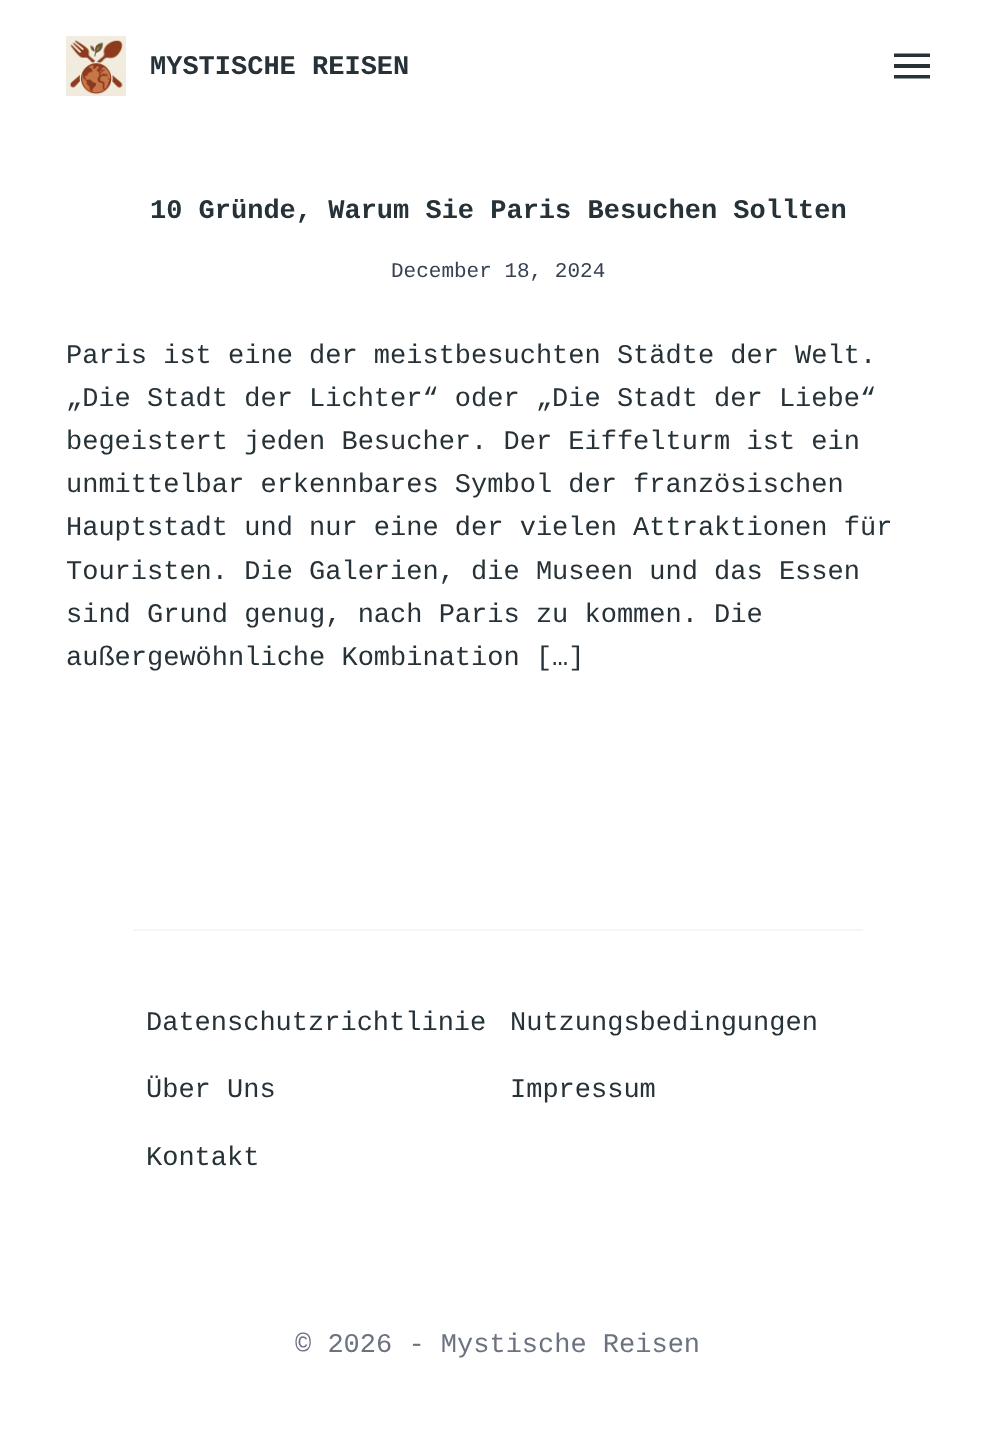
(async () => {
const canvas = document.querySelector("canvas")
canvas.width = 995
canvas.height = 1438
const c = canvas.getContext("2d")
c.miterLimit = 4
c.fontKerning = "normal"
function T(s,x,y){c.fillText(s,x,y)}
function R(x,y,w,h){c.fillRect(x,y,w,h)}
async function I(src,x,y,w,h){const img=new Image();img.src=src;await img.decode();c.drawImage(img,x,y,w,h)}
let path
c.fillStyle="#fff"
R(0,0,995,1438)
await I("1.png",66,36,60,60)
c.font="bold 27px Liberation Mono"
c.fillStyle="#263238"
T("MYSTISCHE REISEN",150,74)
path = new Path2D("M894 53.5h36v3.5h-36zm0 10.5h36v4h-36zm0 11h36v3.5h-36z")
c.fill(path,"evenodd")
T("10 Gründe, Warum Sie Paris Besuchen Sollten",150,218)
c.font="21px Liberation Mono"
c.fillStyle="#374151"
T("December 18, 2024",391,277)
c.font="27px Liberation Mono"
c.fillStyle="#263238"
T("Paris ist eine der meistbesuchten Städte der Welt.",66,363)
T("„Die Stadt der Lichter“ oder „Die Stadt der Liebe“",66,406)
T("begeistert jeden Besucher. Der Eiffelturm ist ein",66,449)
T("unmittelbar erkennbares Symbol der französischen",66,492)
T("Hauptstadt und nur eine der vielen Attraktionen für",66,535)
T("Touristen. Die Galerien, die Museen und das Essen",66,579)
T("sind Grund genug, nach Paris zu kommen. Die",66,622)
T("außergewöhnliche Kombination […]",66,665)
c.fillStyle="#f4f6f8"
R(134,929,729,2)
c.fillStyle="#263238"
T("Datenschutzrichtlinie",146,1030)
T("Nutzungsbedingungen",510,1030)
T("Über Uns",146,1097)
T("Impressum",510,1097)
T("Kontakt",146,1165)
c.fillStyle="#6b7280"
T("© 2026 - Mystische Reisen",295,1352)
})()
